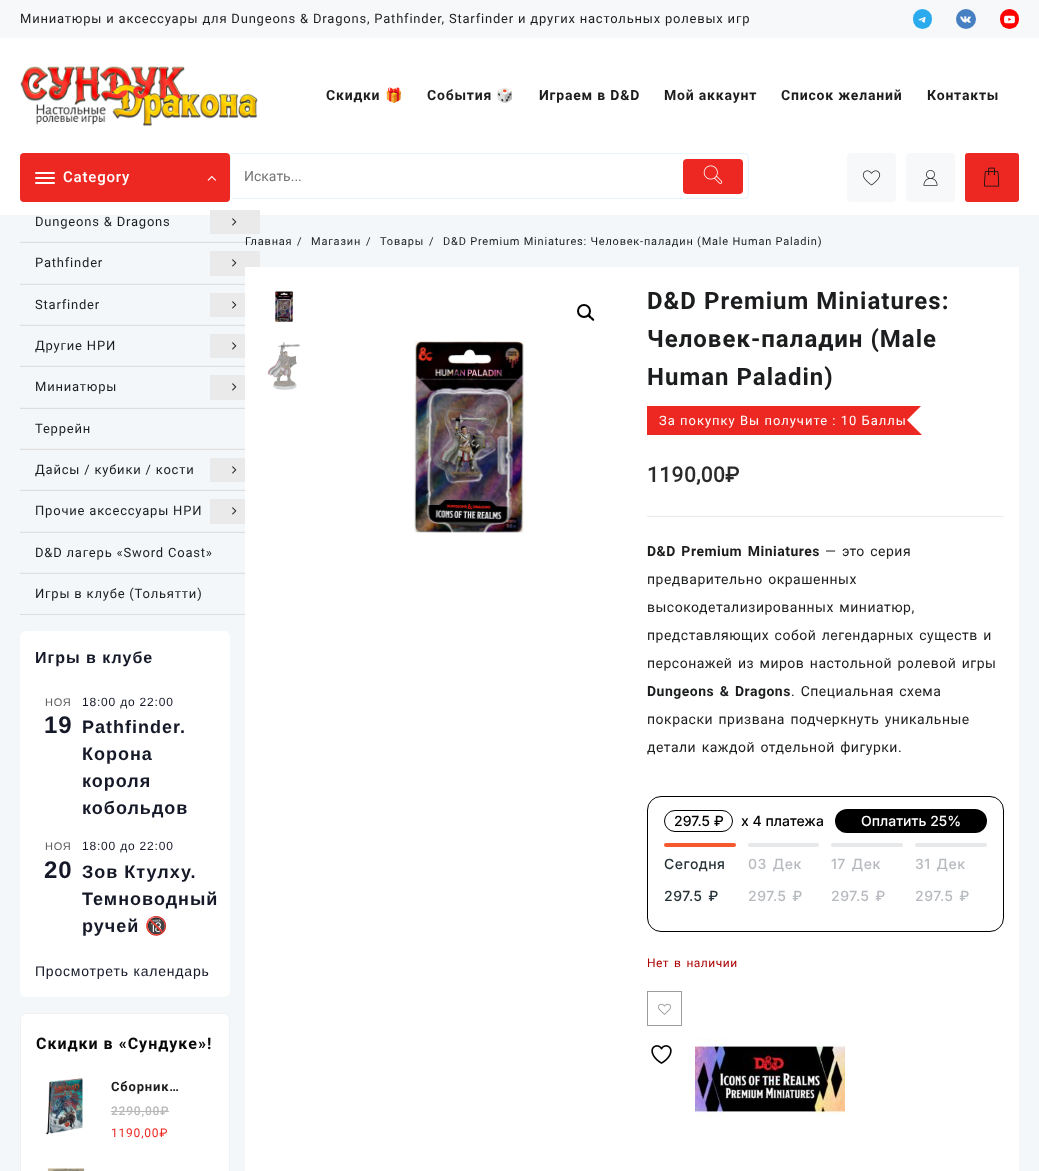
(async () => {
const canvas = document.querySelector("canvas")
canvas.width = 1039
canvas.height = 1171
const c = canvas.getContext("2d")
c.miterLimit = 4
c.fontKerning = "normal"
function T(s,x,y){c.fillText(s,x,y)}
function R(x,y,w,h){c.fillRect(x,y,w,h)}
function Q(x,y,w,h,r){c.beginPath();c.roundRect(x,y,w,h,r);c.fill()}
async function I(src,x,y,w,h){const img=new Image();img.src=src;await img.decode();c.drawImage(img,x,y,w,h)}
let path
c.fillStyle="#f4f7f9"
R(0,0,1039,1171)
c.fillStyle="#fff"
R(0,38,1039,177)
c.fillStyle="#f7f8f9"
R(0,0,1039,38)
c.letterSpacing="0.8px"
c.font="13px Roboto"
c.fillStyle="#1c1d1e"
T("Миниатюры и аксессуары для Dungeons & Dragons, Pathfinder, Starfinder и других настольных ролевых игр",20,23)
c.fillStyle="#2aabee"
Q(913,9,19,20,9.5)
await I("1.png",918,16,8,7)
c.fillStyle="#4680c2"
c.beginPath()
c.arc(966,19,10,0,7)
c.fill()
await I("2.png",960,16,11,7)
c.fillStyle="#f00"
Q(1000,9,19,20,9.5)
await I("3.png",1004,15,11,9)
await I("4.png",20,66,238,60)
c.font="bold 14px Roboto"
c.fillStyle="#1c1d1e"
T("Скидки󠀥",326,100)
c.font="14px Noto Color Emoji"
T("🎁",385,100)
c.font="bold 14px Roboto"
T("События",427,100)
c.font="14px Noto Color Emoji"
T("🎲",496,100)
c.font="bold 14px Roboto"
T("Играем в D&D",539,100)
T("Мой аккаунт",664,100)
T("Список желаний",781,100)
T("Контакты",927,100)
c.fillStyle="#ed2822"
Q(20,153,210,49,4)
c.fillStyle="#fff"
Q(35,172,20,2,1)
Q(35,177,20,2,1)
Q(35,182,20,2,1)
c.font="500 15px Roboto"
T("Category",63,182)
await I("5.png",207,175,9,6)
c.fillStyle="#dcdee0"
R(20,242,250,1)
c.fillStyle="#f1f1f1"
R(20,241,250,1)
c.font="13px Roboto"
c.fillStyle="#1c1d1e"
T("Dungeons & Dragons",35,226)
c.fillStyle="#eaeaea"
R(210,210,50,24)
await I("6.png",232,218,5,8)
c.fillStyle="#dcdee0"
R(20,284,225,1)
c.fillStyle="#f1f1f1"
R(20,283,225,1)
c.fillStyle="#1c1d1e"
T("Pathfinder",35,267)
c.fillStyle="#eaeaea"
R(210,251,50,25)
await I("6.png",232,259,5,8)
c.fillStyle="#dcdee0"
R(20,325,225,1)
c.fillStyle="#f1f1f1"
R(20,324,225,1)
c.fillStyle="#1c1d1e"
T("Starfinder",35,309)
c.fillStyle="#eaeaea"
R(210,293,35,24)
await I("6.png",232,301,5,8)
c.fillStyle="#dcdee0"
R(20,366,225,1)
c.fillStyle="#f1f1f1"
R(20,365,225,1)
c.fillStyle="#1c1d1e"
T("Другие НРИ",35,350)
c.fillStyle="#eaeaea"
R(210,334,35,24)
await I("6.png",232,342,5,8)
c.fillStyle="#dcdee0"
R(20,408,225,1)
c.fillStyle="#f1f1f1"
R(20,407,225,1)
c.fillStyle="#1c1d1e"
T("Миниатюры",35,391)
c.fillStyle="#eaeaea"
R(210,375,35,25)
await I("6.png",232,383,5,8)
c.fillStyle="#dcdee0"
R(20,449,225,1)
c.fillStyle="#f1f1f1"
R(20,448,225,1)
c.fillStyle="#1c1d1e"
T("Террейн",35,433)
c.fillStyle="#dcdee0"
R(20,490,225,1)
c.fillStyle="#f1f1f1"
R(20,489,225,1)
c.fillStyle="#1c1d1e"
T("Дайсы / кубики / кости",35,474)
c.fillStyle="#eaeaea"
R(210,458,35,24)
await I("6.png",232,466,5,8)
c.fillStyle="#dcdee0"
R(20,532,225,1)
c.fillStyle="#f1f1f1"
R(20,531,225,1)
c.fillStyle="#1c1d1e"
T("Прочие аксессуары НРИ",35,515)
c.fillStyle="#eaeaea"
R(210,499,35,25)
await I("6.png",232,507,5,8)
c.fillStyle="#dcdee0"
R(20,573,225,1)
c.fillStyle="#f1f1f1"
R(20,572,225,1)
c.fillStyle="#1c1d1e"
T("D&D лагерь «Sword Coast»",35,557)
c.fillStyle="#dcdee0"
R(20,614,225,1)
c.fillStyle="#1c1d1e"
T("Игры в клубе (Тольятти)",35,598)
c.beginPath()
c.roundRect(230.5,153.5,518,45,3.5)
c.strokeStyle="#e7f5ff"
c.stroke()
c.fillStyle="#fff"
R(231,154,2,44)
c.letterSpacing="0px"
c.font="14px Roboto"
c.fillStyle="#757575"
T("Искать...",244,181)
c.fillStyle="#ed2822"
Q(683,159,60,35,4)
await I("7.png",703,165,20,19)
c.fillStyle="#f7f8f9"
Q(847,153,49,49,4)
await I("8.png",862,170,19,16)
Q(906,153,49,49,4)
await I("9.png",923,170,15,16)
c.fillStyle="#ed2822"
Q(965,153,54,49,3)
await I("10.png",984,167,16,20)
c.fillStyle="#fff"
Q(20,631,210,366,6)
c.letterSpacing="1px"
c.font="bold 16px Liberation Sans"
c.fillStyle="#141827"
T("Игры в клубе",35,663)
c.letterSpacing="0.8px"
c.font="11px Liberation Sans"
c.fillStyle="#5d5d5d"
T("НОЯ",45,706)
c.font="bold 24px Liberation Sans"
c.fillStyle="#141827"
T("19",44,733)
c.font="12px Liberation Sans"
T("18:00 до 22:00",82,706)
c.letterSpacing="1px"
c.font="bold 18px Liberation Sans"
T("Pathfinder.",82,733)
T("Корона",82,760)
T("короля",82,787)
T("кобольдов",82,814)
c.letterSpacing="0.8px"
c.font="11px Liberation Sans"
c.fillStyle="#5d5d5d"
T("НОЯ",45,850)
c.font="bold 24px Liberation Sans"
c.fillStyle="#141827"
T("20",44,878)
c.font="12px Liberation Sans"
T("18:00 до 22:00",82,850)
c.letterSpacing="1px"
c.font="bold 18px Liberation Sans"
T("Зов Ктулху.",82,878)
T("Темноводный",82,905)
T("ручей",82,932)
c.font="bold 18px Noto Color Emoji"
T("🔞",145,932)
c.letterSpacing="0.8px"
c.font="14px Liberation Sans"
T("Просмотреть календарь",35,976)
c.fillStyle="#fff"
c.beginPath()
c.roundRect(20.5,1013.5,209,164,5.5)
c.fill()
c.strokeStyle="#f1f1f1"
c.stroke()
c.letterSpacing="1px"
c.font="bold 16px Roboto"
c.fillStyle="#090909"
T("Скидки в «Сундуке»!",36,1049)
await I("11.png",45,1078,38,57)
c.letterSpacing="0.8px"
c.font="bold 13px Roboto"
c.fillStyle="#1c1d1e"
T("Сборник…",111,1091)
c.font="500 12px Roboto"
c.fillStyle="#b8b8b8"
T("2290,00₽",111,1115)
R(111,1111,58,1)
c.font="12px Roboto"
c.fillStyle="#ed2822"
T("1190,00₽",111,1137)
await I("12.png",47,1168,38,3)
c.font="11px Roboto"
c.fillStyle="#1c1d1e"
T("Главная",245,245)
T("/",297,245)
T("Магазин",311,245)
T("/",366,245)
T("Товары",380,245)
T("/",429,245)
T("D&D Premium Miniatures: Человек-паладин (Male Human Paladin)",443,245)
c.fillStyle="#fff"
R(245,267,774,904)
await I("13.png",275,291,19,31)
await I("14.png",267,342,34,48)
c.beginPath()
c.arc(584,311,6,0,7)
c.strokeStyle="#000"
c.lineWidth=2
c.stroke()
c.fillStyle="#000"
path = new Path2D("M588 315c1.5-1.5 3 1.5 3.5 2c1 .5 3.5 2.5 2.5 3.5c-1.5 1-3-1.5-3.5-2c-1-.5-3.5-2.5-2.5-3.5z")
c.fill(path)
await I("15.png",414,341,110,192)
c.letterSpacing="1px"
c.font="bold 24px Roboto"
c.fillStyle="#1c1d1e"
T("D&D Premium Miniatures:",647,309)
T("Человек-паладин (Male",647,347)
T("Human Paladin)",647,385)
c.fillStyle="#ed2822"
R(647,406,275,29)
c.font="13px Roboto"
c.fillStyle="#fff"
T("За покупку Вы получите : 10 Баллы",659,425)
path = new Path2D("M927 400v40l-20-20z")
c.fill(path)
c.letterSpacing="0.5px"
c.font="bold 21px 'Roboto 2'"
c.fillStyle="#2b2a2a"
T("1190,00₽",647,482)
c.fillStyle="#eaeaea"
R(647,516,357,1)
c.wordSpacing="1.5px"
c.font="bold 14px Roboto"
c.fillStyle="#1c1d1e"
T("D&D Premium Miniatures",647,556)
c.font="14px Roboto"
T("— это серия",825,556)
T("предварительно окрашенных",647,584)
T("высокодетализированных миниатюр,",647,612)
T("представляющих собой легендарных существ и",647,640)
T("персонажей из миров настольной ролевой игры",647,668)
c.font="bold 14px Roboto"
T("Dungeons & Dragons",647,696)
c.font="14px Roboto"
T(". Специальная схема",791,696)
T("покраски призвана подчеркнуть уникальные",647,724)
T("детали каждой отдельной фигурки.",647,752)
c.beginPath()
c.roundRect(647.5,796.5,356,135,13.5)
c.lineWidth=1
c.stroke()
c.beginPath()
c.roundRect(664.5,810.5,68,21,10.5)
c.stroke()
c.letterSpacing="0px"
c.wordSpacing="0px"
c.font="500 14px Inter"
c.fillStyle="#000"
T("297.5 ₽",674,826)
T("х 4 платежа",741,826)
Q(835,809,152,24,12)
c.fillStyle="#fff"
T("Оплатить 25%",861,826)
c.fillStyle="#f7592f"
Q(664,843,72,4,2)
c.letterSpacing="0.5px"
c.fillStyle="#263238"
T("Сегодня",664,869)
c.wordSpacing="1.5px"
T("297.5 ₽",664,901)
c.fillStyle="#e7e8ea"
Q(748,843,71,4,2)
c.fillStyle="#b7babf"
T("03 Дек",748,869)
T("297.5 ₽",748,901)
c.fillStyle="#e7e8ea"
Q(831,843,72,4,2)
c.fillStyle="#b7babf"
T("17 Дек",831,869)
T("297.5 ₽",831,901)
c.fillStyle="#e7e8ea"
Q(915,843,72,4,2)
c.fillStyle="#b7babf"
T("31 Дек",915,869)
T("297.5 ₽",915,901)
c.font="12px Roboto"
c.fillStyle="#a00"
T("Нет в наличии",647,967)
c.strokeStyle="#9c9c9c"
c.strokeRect(647.5,991.5,34,34)
await I("16.png",658,1003,13,12)
await I("17.png",651,1045,21,19)
await I("18.png",695,1038,150,78)
})()
